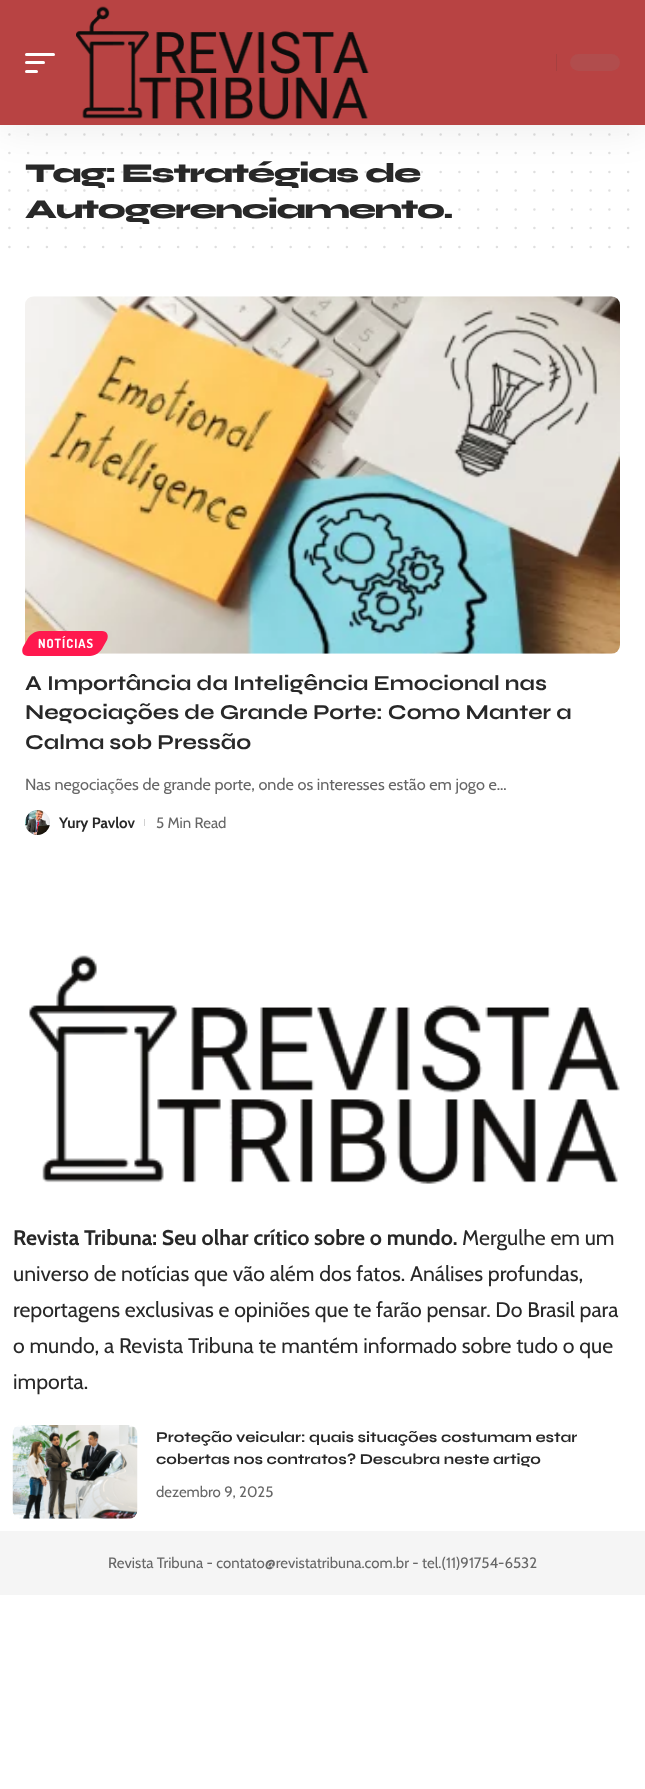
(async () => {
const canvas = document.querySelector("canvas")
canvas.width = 645
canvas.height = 1789
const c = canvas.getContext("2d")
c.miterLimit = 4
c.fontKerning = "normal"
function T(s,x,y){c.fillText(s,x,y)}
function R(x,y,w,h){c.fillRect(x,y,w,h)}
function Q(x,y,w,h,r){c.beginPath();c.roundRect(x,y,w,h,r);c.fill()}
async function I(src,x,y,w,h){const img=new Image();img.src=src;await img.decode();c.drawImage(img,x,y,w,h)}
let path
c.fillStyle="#fff"
R(0,0,645,1789)
path = new Path2D("M9.4 134.4h619")
c.strokeStyle="#dfdfdf"
c.lineWidth=2.5
c.lineCap="round"
c.setLineDash([0,18.75])
c.stroke(path)
path = new Path2D("M9.4 153.1h619")
c.stroke(path)
c.letterSpacing="-1.25px"
c.font="800 27.5px Syne"
c.fillStyle="#282828"
T("Tag: Estratégias de",25,182)
path = new Path2D("M9.4 171.9h619")
c.strokeStyle="#28282826"
c.stroke(path)
c.fillStyle="#00000012"
c.filter="blur(19px)"
c.beginPath()
c.rect(0,5,645,125)
c.fill()
c.filter="none"
c.fillStyle="#b84343"
R(0,0,645,125)
c.fillStyle="#fff"
Q(25,53,30,3,1.5)
Q(25,61,20,3,1.5)
Q(25,70,13,3,1.5)
await I("1.png",76,6,293,114)
c.fillStyle="#a64040"
R(556,54,1,17)
c.fillStyle="#b14d4d"
Q(570,54,50,17,8.5)
path = new Path2D("M9.4 190.6h619")
c.strokeStyle="#dfdfdf"
c.stroke(path)
c.fillStyle="#282828"
T("Autogerenciamento.",25,218)
path = new Path2D("M9.4 209.4h619")
c.strokeStyle="#28282826"
c.stroke(path)
path = new Path2D("M9.4 228.1h619")
c.strokeStyle="#dfdfdf"
c.stroke(path)
path = new Path2D("M9.4 246.9h619")
c.stroke(path)
await I("2.png",25,296,595,358)
c.fillStyle="#ff184e"
path = new Path2D("M40 631h62c5 0 7 4 5 9l-4 7c-2 5-8 9-13 9h-62c-5 0-7-4-5-9l4-7c2-5 8-9 13-9z")
c.fill(path)
c.letterSpacing="1px"
c.font="bold 12.5px Dosis"
c.fillStyle="#fff"
T("NOTÍCIAS",38,648)
c.letterSpacing="0px"
c.font="bold 21.25px Syne"
c.fillStyle="#282828"
T("A Importância da Inteligência Emocional nas",25,690)
T("Negociações de Grande Porte: Como Manter a",25,719)
T("Calma sob Pressão",25,749)
c.font="16.25px Cabin"
c.fillStyle="#666"
T("Nas negociações de grande porte, onde os interesses estão em jogo e…",25,790)
await I("3.png",25,810,25,25)
c.font="bold 15px Cabin"
c.fillStyle="#282828"
T("Yury Pavlov",59,828)
c.fillStyle="#d1d1d1"
R(144,819,1,7)
c.font="15px Cabin"
c.fillStyle="#666"
T("5 Min Read",156,828)
await I("4.png",29,955,591,229)
c.font="bold 21.25px Cabin"
c.fillStyle="#282828"
T("Revista Tribuna: Seu olhar crítico sobre o mundo.",13,1245)
c.font="21.25px Cabin"
T("Mergulhe em um",462,1245)
T("universo de notícias que vão além dos fatos. Análises profundas,",13,1281)
T("reportagens exclusivas e opiniões que te farão pensar. Do Brasil para",13,1317)
T("o mundo, a Revista Tribuna te mantém informado sobre tudo o que",13,1353)
T("importa.",13,1389)
await I("5.png",12,1425,126,94)
c.font="bold 15px Syne"
T("Proteção veicular: quais situações costumam estar",156,1442)
T("cobertas nos contratos? Descubra neste artigo",156,1464)
c.font="15px Cabin"
c.fillStyle="#666"
T("dezembro 9, 2025",156,1497)
c.fillStyle="#f5f5f5"
R(0,1531,645,64)
c.fillStyle="#666"
T("Revista Tribuna - contato@revistatribuna.com.br - tel.(11)91754-6532",108,1568)
})()
